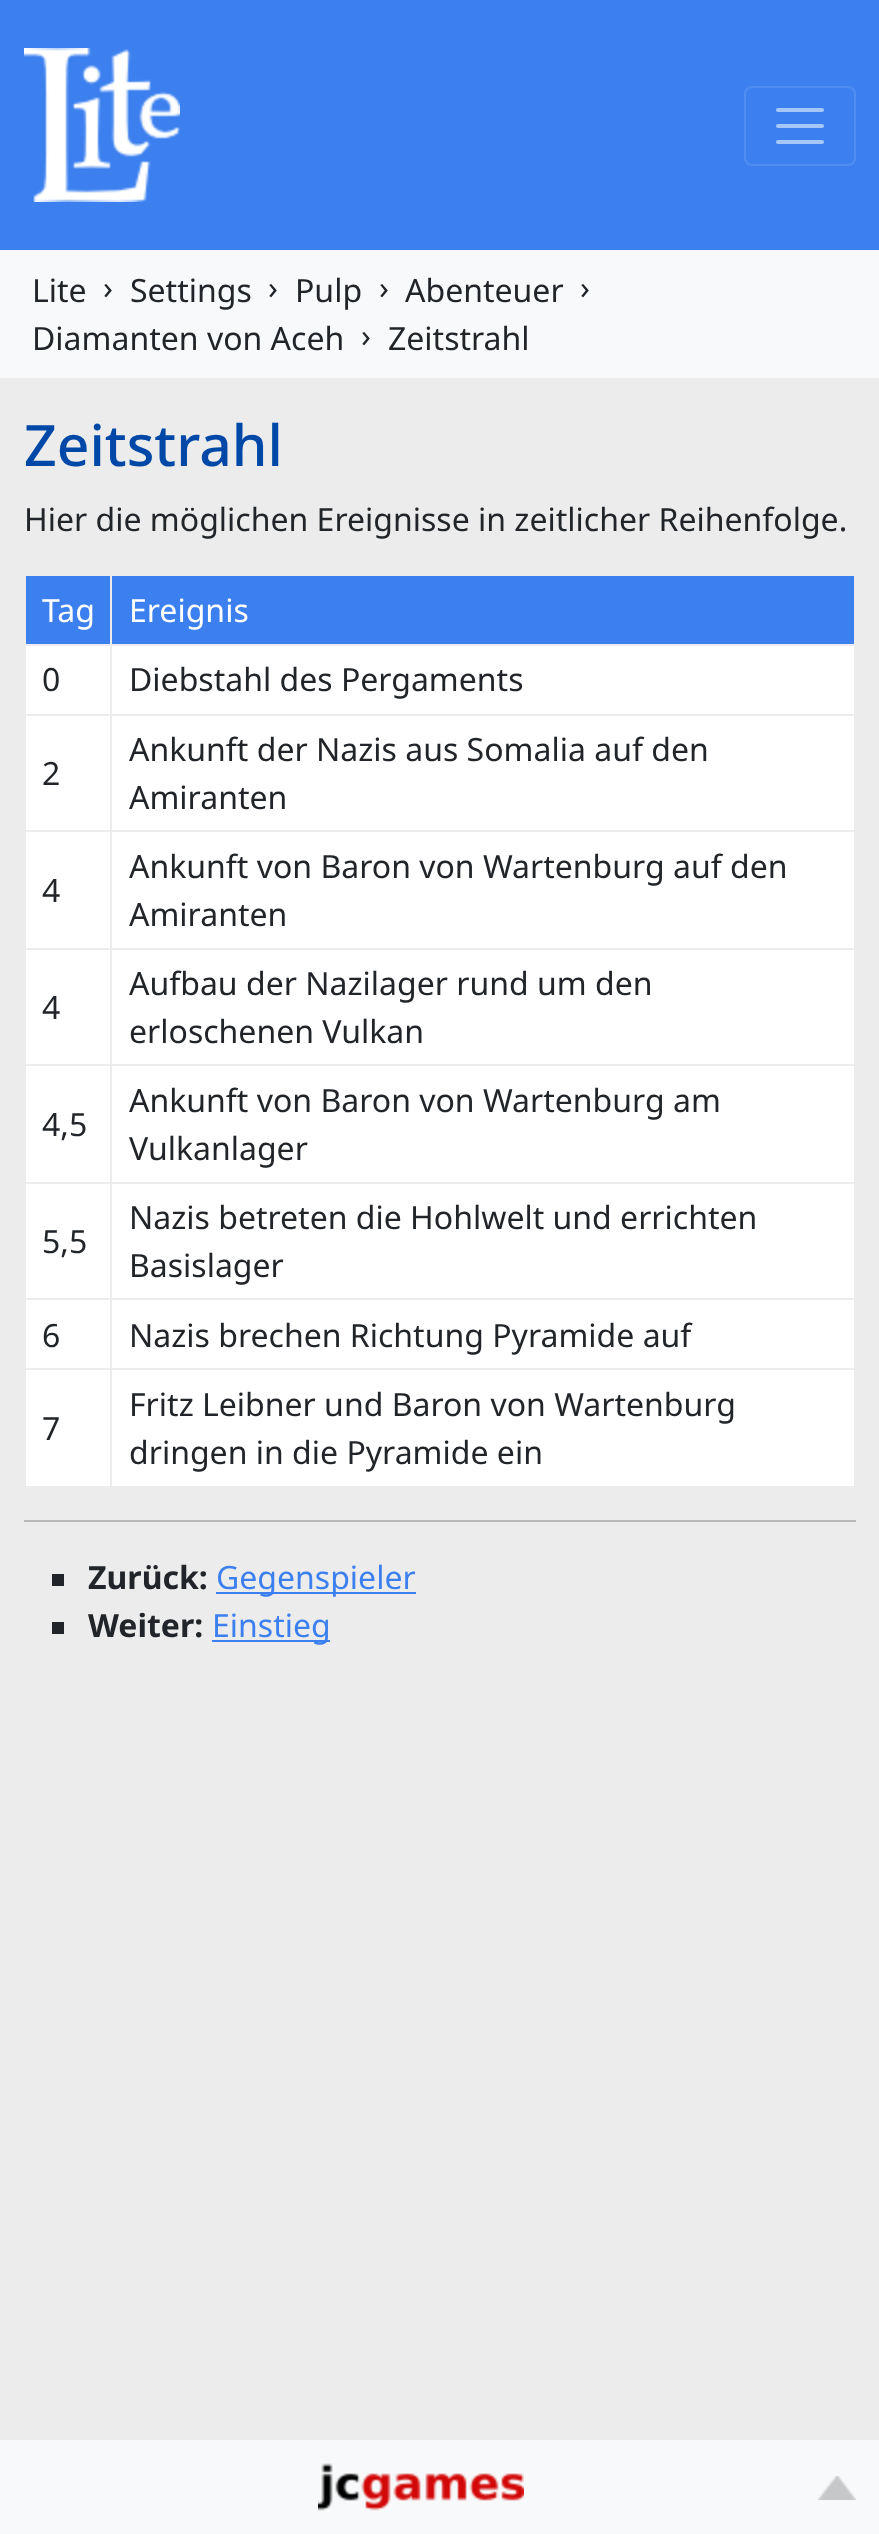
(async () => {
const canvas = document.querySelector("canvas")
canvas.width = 879
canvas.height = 2534
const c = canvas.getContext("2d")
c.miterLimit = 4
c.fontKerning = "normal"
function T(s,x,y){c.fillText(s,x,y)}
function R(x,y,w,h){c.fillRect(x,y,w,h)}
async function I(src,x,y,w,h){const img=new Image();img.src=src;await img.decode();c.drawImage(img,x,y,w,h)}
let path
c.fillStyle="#ececec"
R(0,0,879,2534)
c.fillStyle="#3c80ef"
R(0,0,879,250)
await I("1.png",24,48,156,154)
c.beginPath()
c.roundRect(745,87,110,78,7)
c.strokeStyle="#508df1"
c.lineWidth=2
c.stroke()
path = new Path2D("M778 110h44m-44 16h44m-44 16h44")
c.strokeStyle="#a7c6f8"
c.lineWidth=4
c.lineCap="round"
c.stroke(path)
c.fillStyle="#f8f9fa"
R(0,250,879,128)
c.font="32px Noto Sans"
c.fillStyle="#212529"
T("Lite",32,302)
T("›",103,299)
T("Settings",130,302)
T("›",268,299)
T("Pulp",295,302)
T("›",379,299)
T("Abenteuer",405,302)
T("›",580,299)
T("Diamanten von Aceh",32,350)
T("›",361,347)
T("Zeitstrahl",388,350)
c.font="500 57px Noto Sans"
c.fillStyle="#0048a8"
T("Zeitstrahl",24,466)
c.font="32px Noto Sans"
c.fillStyle="#212529"
T("Hier die möglichen Ereignisse in zeitlicher Reihenfolge.",24,531)
c.fillStyle="#3c80ef"
R(26,576,84,68)
c.fillStyle="#fff"
T("Tag",42,622)
c.fillStyle="#3c80ef"
R(112,576,742,68)
c.fillStyle="#fff"
T("Ereignis",129,622)
R(26,646,84,68)
c.fillStyle="#212529"
T("0",42,691)
c.fillStyle="#fff"
R(112,646,742,68)
c.fillStyle="#212529"
T("Diebstahl des Pergaments",129,691)
c.fillStyle="#fff"
R(26,716,84,114)
c.fillStyle="#212529"
T("2",42,785)
c.fillStyle="#fff"
R(112,716,742,114)
c.fillStyle="#212529"
T("Ankunft der Nazis aus Somalia auf den",129,761)
T("Amiranten",129,809)
c.fillStyle="#fff"
R(26,832,84,116)
c.fillStyle="#212529"
T("4",42,902)
c.fillStyle="#fff"
R(112,832,742,116)
c.fillStyle="#212529"
T("Ankunft von Baron von Wartenburg auf den",129,878)
T("Amiranten",129,926)
c.fillStyle="#fff"
R(26,950,84,114)
c.fillStyle="#212529"
T("4",42,1019)
c.fillStyle="#fff"
R(112,950,742,114)
c.fillStyle="#212529"
T("Aufbau der Nazilager rund um den",129,995)
T("erloschenen Vulkan",129,1043)
c.fillStyle="#fff"
R(26,1066,84,116)
c.fillStyle="#212529"
T("4,5",42,1136)
c.fillStyle="#fff"
R(112,1066,742,116)
c.fillStyle="#212529"
T("Ankunft von Baron von Wartenburg am",129,1112)
T("Vulkanlager",129,1160)
c.fillStyle="#fff"
R(26,1184,84,114)
c.fillStyle="#212529"
T("5,5",42,1253)
c.fillStyle="#fff"
R(112,1184,742,114)
c.fillStyle="#212529"
T("Nazis betreten die Hohlwelt und errichten",129,1229)
T("Basislager",129,1277)
c.fillStyle="#fff"
R(26,1300,84,68)
c.fillStyle="#212529"
T("6",42,1347)
c.fillStyle="#fff"
R(112,1300,742,68)
c.fillStyle="#212529"
T("Nazis brechen Richtung Pyramide auf",129,1347)
c.fillStyle="#fff"
R(26,1370,84,116)
c.fillStyle="#212529"
T("7",42,1440)
c.fillStyle="#fff"
R(112,1370,742,116)
c.fillStyle="#212529"
T("Fritz Leibner und Baron von Wartenburg",129,1416)
T("dringen in die Pyramide ein",129,1464)
c.fillStyle="#b9babb"
R(24,1520,832,2)
c.fillStyle="#212529"
R(52,1574,12,12)
c.font="bold 32px Noto Sans"
T("Zurück:",88,1589)
c.fillStyle="#3c80ef"
R(216,1592,200,2)
c.font="32px Noto Sans"
T("Gegenspieler",216,1589)
c.fillStyle="#212529"
R(52,1622,12,12)
c.font="bold 32px Noto Sans"
T("Weiter:",88,1637)
c.fillStyle="#3c80ef"
R(212,1640,118,2)
c.font="32px Noto Sans"
T("Einstieg",212,1637)
c.fillStyle="#f8f9fa"
R(0,2440,879,94)
await I("2.png",318,2463,206,48)
await I("3.png",818,2476,38,24)
})()
